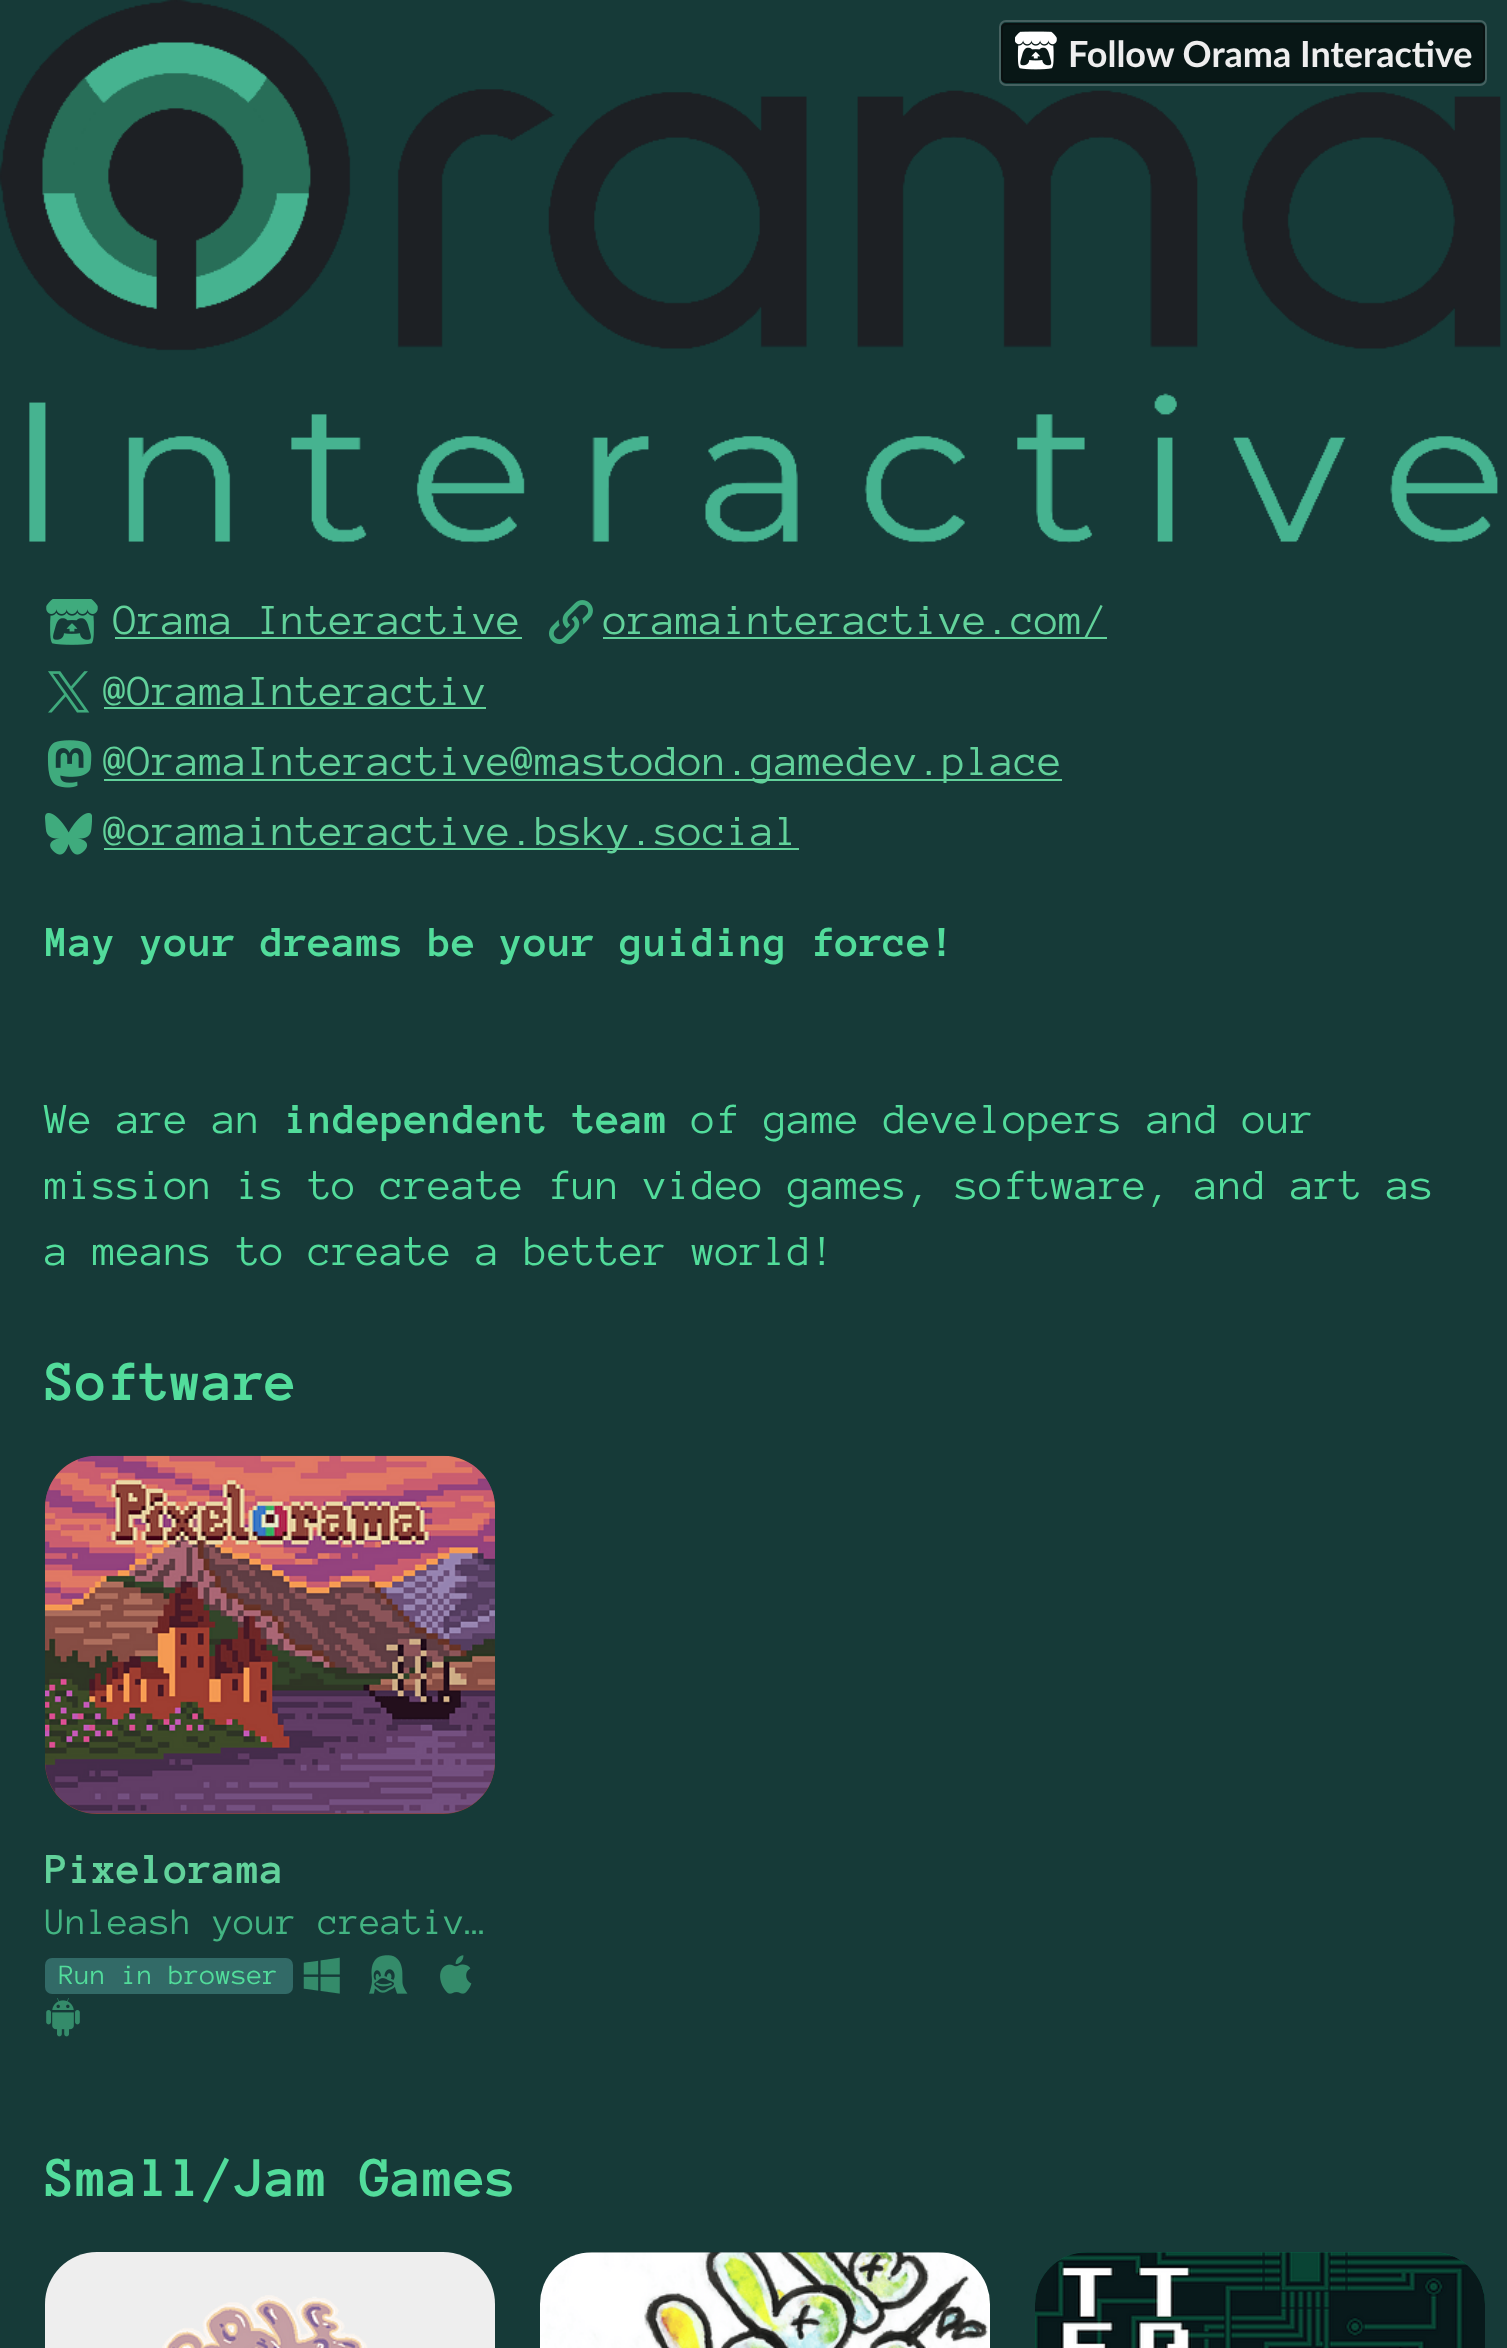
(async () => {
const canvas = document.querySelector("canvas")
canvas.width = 1507
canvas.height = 2348
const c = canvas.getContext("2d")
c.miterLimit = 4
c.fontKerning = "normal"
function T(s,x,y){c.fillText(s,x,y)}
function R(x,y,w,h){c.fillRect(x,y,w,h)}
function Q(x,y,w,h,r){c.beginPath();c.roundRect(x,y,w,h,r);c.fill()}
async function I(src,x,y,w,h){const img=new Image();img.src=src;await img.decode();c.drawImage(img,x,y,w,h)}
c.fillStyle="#163a38"
R(0,0,1507,2348)
await I("2.png",0,0,1501,543)
c.beginPath()
c.roundRect(1000,21,486,64,6)
c.strokeStyle="#456160"
c.lineWidth=2
c.stroke()
c.fillStyle="#00000099"
Q(1001,23,484,60,5)
c.beginPath()
c.roundRect(1002,24,482,58,4)
c.strokeStyle="#0a0a0a80"
c.stroke()
await I("1.png",1015,31,42,39)
c.font="bold 36px Lato"
c.fillStyle="#eee"
T("Follow Orama Interactive",1068,67)
await I("3.png",46,599,52,46)
c.font="43.9px Anonymous Pro"
c.fillStyle="#62d29b"
T("Orama Interactive",114,634)
R(115,637,407,2)
await I("4.png",549,600,44,44)
R(603,637,504,2)
T("oramainteractive.com/",604,634)
await I("5.png",48,671,42,42)
T("@OramaInteractiv",104,705)
R(104,707,382,2)
await I("6.png",47,740,45,48)
R(104,779,958,2)
T("@OramaInteractive@mastodon.gamedev.place",104,775)
await I("7.png",45,813,47,42)
R(104,848,695,2)
T("@oramainteractive.bsky.social",104,845)
c.font="bold 43.9px Anonymous Pro"
c.fillStyle="#52dc9b"
T("May your dreams be your guiding force!",45,956)
c.font="43.9px Anonymous Pro"
T("We are an",45,1133)
c.font="bold 43.9px Anonymous Pro"
T("independent team",285,1133)
c.font="43.9px Anonymous Pro"
T("of game developers and our",692,1133)
T("mission is to create fun video games, software, and art as",45,1199)
T("a means to create a better world!",45,1265)
c.font="bold 57.75px Anonymous Pro"
T("Software",45,1400)
c.fillStyle="#8c4338"
Q(45,1456,450,358,52)
await I("8.png",45,1455,450,359)
c.font="bold 43.9px Anonymous Pro"
c.fillStyle="#62d29b"
T("Pixelorama",45,1883)
c.font="38.5px Anonymous Pro"
c.fillStyle="#43b482"
T("Unleash your creativ…",45,1934)
c.fillStyle="#326a67"
Q(45,1958,248,36,7)
c.font="28.75px Anonymous Pro"
c.fillStyle="#52dc9b"
T("Run in browser",59,1984)
await I("9.png",303,1957,37,37)
await I("10.png",369,1955,39,39)
await I("11.png",440,1955,32,39)
await I("12.png",46,1998,34,39)
c.font="bold 57.75px Anonymous Pro"
T("Small/Jam Games",45,2196)
c.fillStyle="#eee"
Q(45,2252,450,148,52)
await I("13.png",162,2295,206,53)
c.fillStyle="#0000001a"
Q(540,2252,450,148,52)
await I("14.png",540,2252,450,96)
c.fillStyle="#0d6349"
Q(1035,2252,450,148,52)
await I("15.png",1035,2252,450,96)
})()
